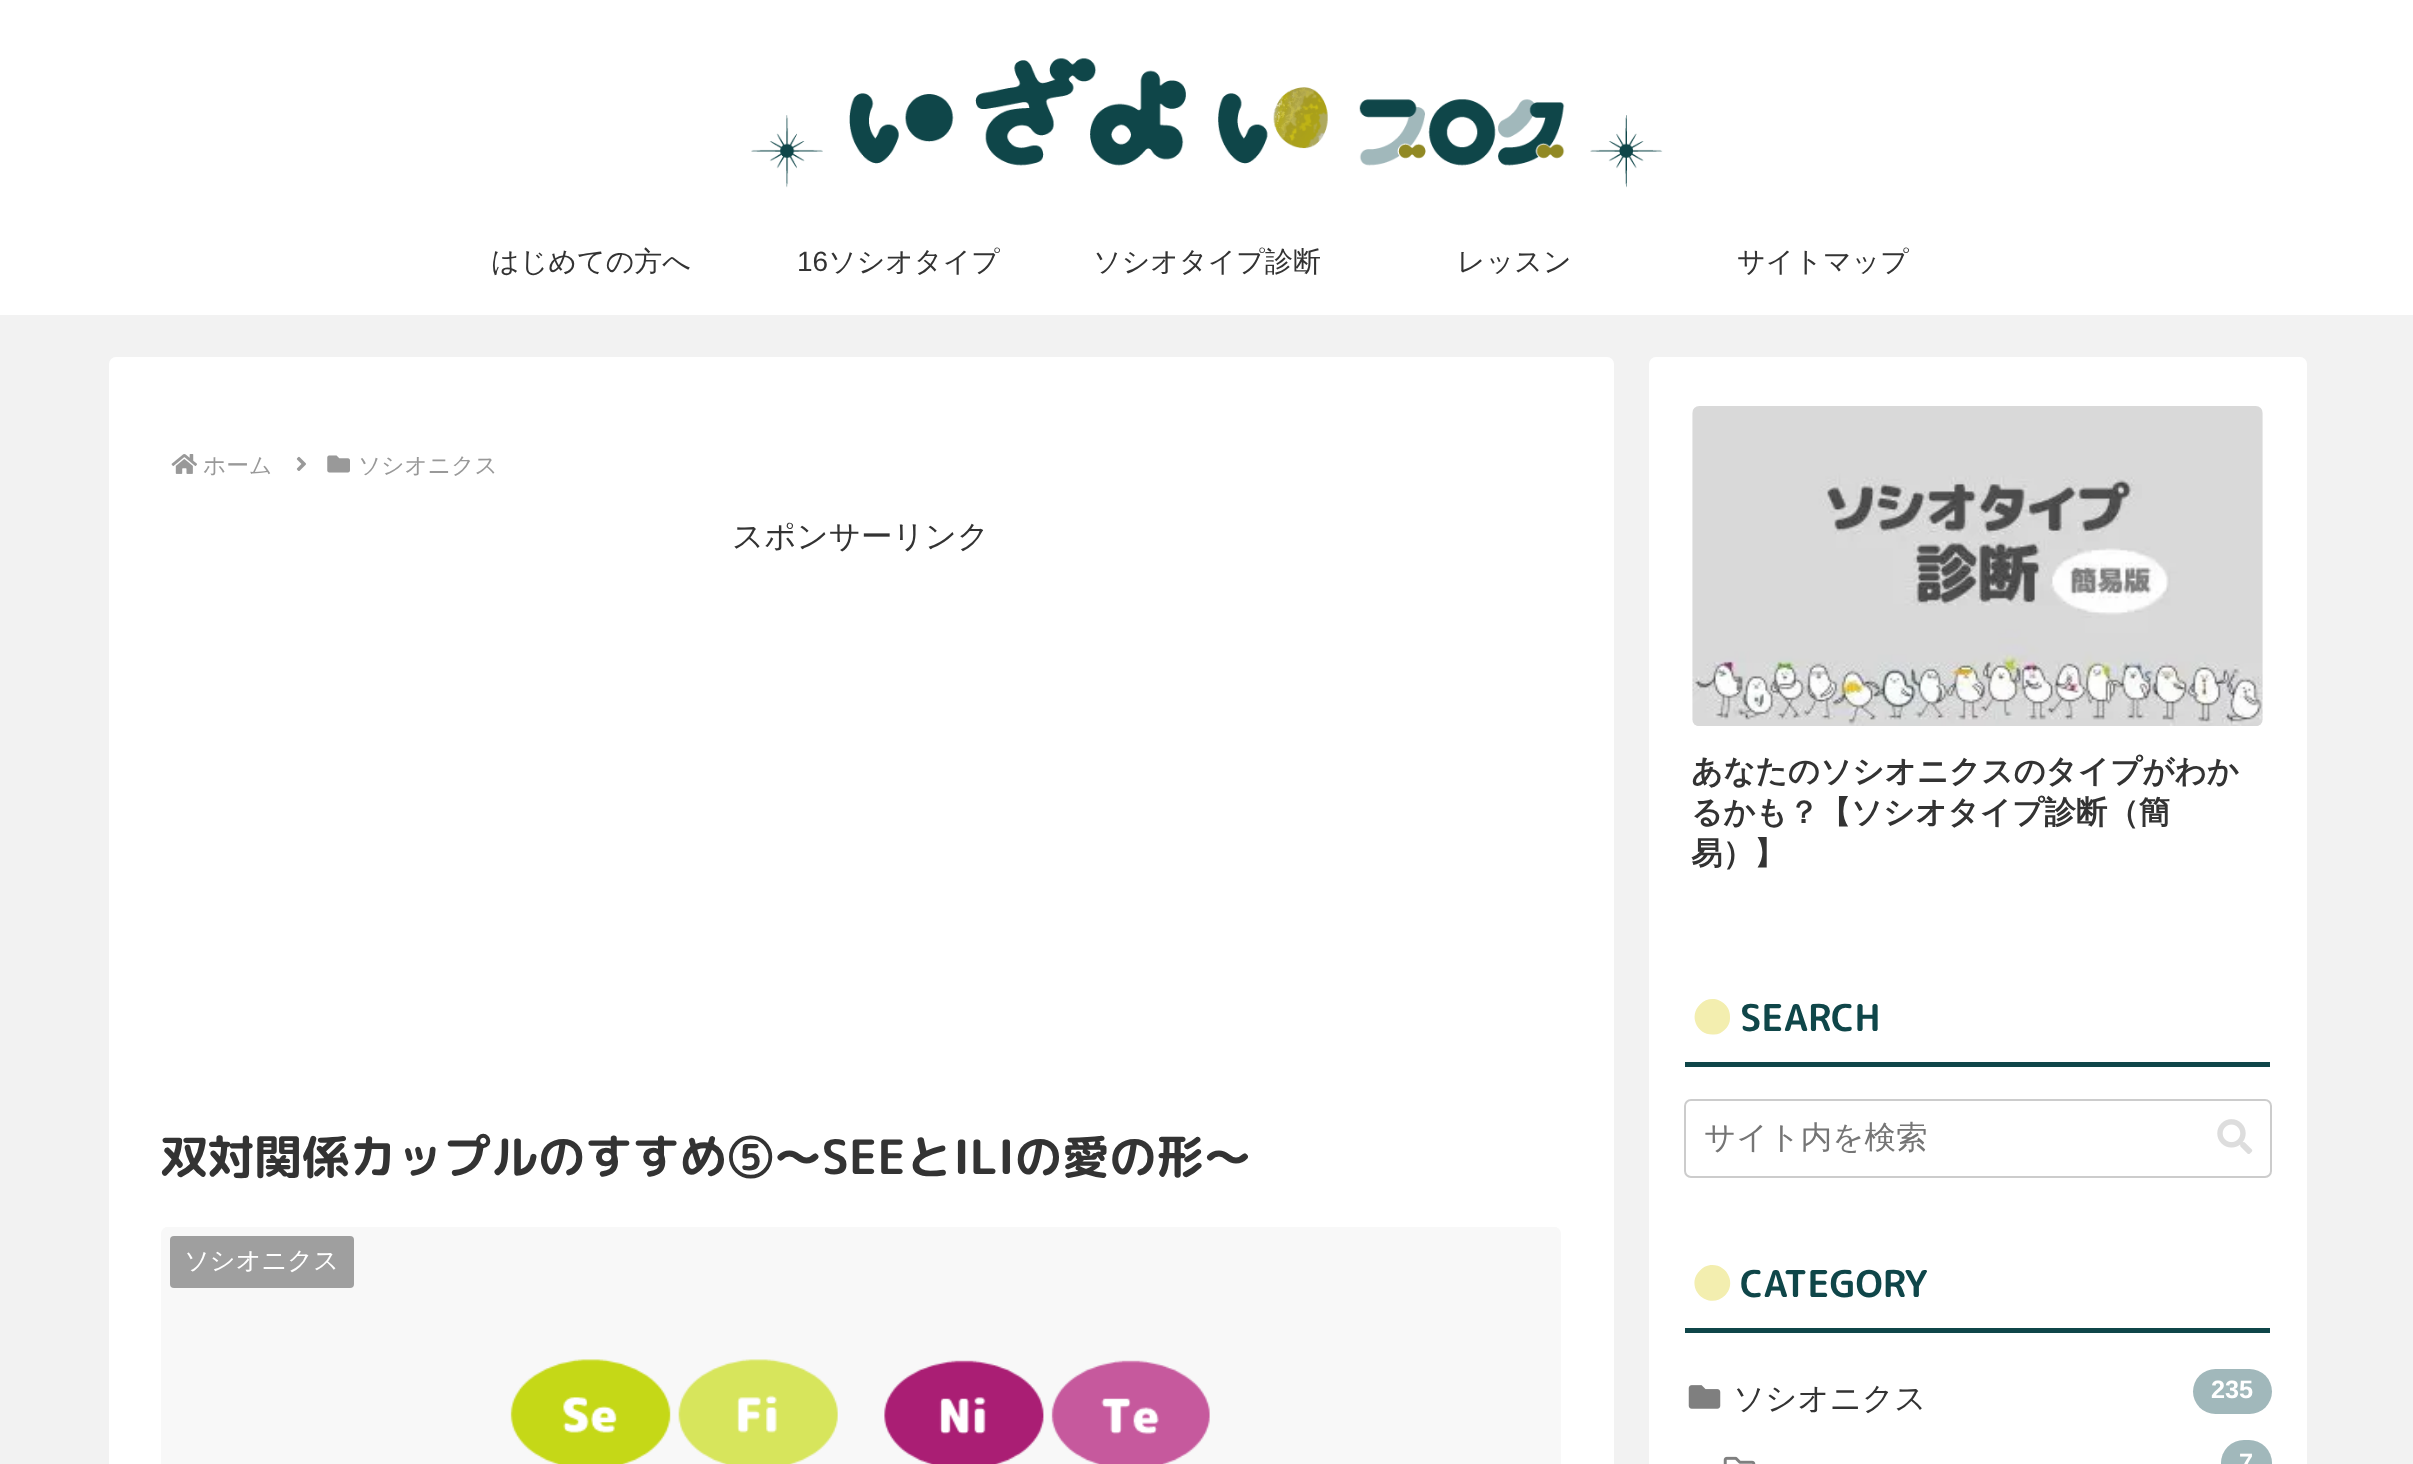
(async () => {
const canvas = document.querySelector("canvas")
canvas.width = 2413
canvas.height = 1464
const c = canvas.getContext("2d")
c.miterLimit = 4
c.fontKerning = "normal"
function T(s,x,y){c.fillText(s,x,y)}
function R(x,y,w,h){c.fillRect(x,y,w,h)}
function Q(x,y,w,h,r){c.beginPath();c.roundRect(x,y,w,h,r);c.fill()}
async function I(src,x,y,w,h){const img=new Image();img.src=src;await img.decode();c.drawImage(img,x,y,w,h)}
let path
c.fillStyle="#f2f2f2"
R(0,0,2413,1464)
c.fillStyle="#fff"
R(0,0,2413,315)
await I("1.png",751,58,912,130)
c.font="500 28px WenQuanYi Zen Hei"
c.fillStyle="#333"
T("はじめての方へ",491,271)
c.font="28px Liberation Sans"
T("16",797,271)
c.font="500 28px WenQuanYi Zen Hei"
T("ソシオタイプ",828,271)
T("ソシオタイプ診断",1093,271)
T("レッスン",1457,271)
T("サイトマップ",1737,271)
c.fillStyle="#fff"
Q(109,357,1505,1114,7)
await I("2.png",171,454,26,20)
c.font="500 22.75px WenQuanYi Zen Hei"
c.fillStyle="#999"
T("ホーム",203,473)
await I("3.png",296,456,10,15)
await I("4.png",327,455,23,18)
T("ソシオニクス",358,473)
c.font="500 31.5px WenQuanYi Zen Hei"
c.fillStyle="#333"
T("スポンサーリンク",732,547)
c.font="bold 47.25px 'Rounded Mplus 1c Bold'"
T("双対関係カップルのすすめ⑤～SEEとILIの愛の形～",160,1174)
await I("5.png",161,1227,1400,237)
c.fillStyle="#9f9f9f"
Q(170,1236,184,52,4)
c.font="500 25.25px WenQuanYi Zen Hei"
c.fillStyle="#fff"
T("ソシオニクス",184,1269)
Q(1649,357,658,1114,7)
await I("6.png",1692,406,571,320)
c.font="bold 31.5px WenQuanYi Zen Hei"
c.fillStyle="#333"
T("あなたのソシオニクスのタイプがわか",1691,782)
T("るかも？【ソシオタイプ診断（簡",1691,823)
T("易）】",1691,864)
c.fillStyle="#0f4649"
R(1685,1062,585,5)
c.fillStyle="#f3eeaf"
path = new Path2D("M1700 1004.5c11.5-12 31.5-2.5 30 14c0 4.5-2 8-5 11c-3 3-6.5 5-11 5c-16.5 1.5-26-18.5-14-30z")
c.fill(path)
c.font="bold 37px 'Rounded Mplus 1c Bold'"
c.fillStyle="#0f4649"
T("SEARCH",1740,1031)
c.beginPath()
c.roundRect(1685,1100,586,77,6)
c.strokeStyle="#ccc"
c.lineWidth=2
c.stroke()
c.font="500 31.5px WenQuanYi Zen Hei"
c.fillStyle="#757575"
T("サイト内を検索",1704,1148)
await I("7.png",2217,1119,36,35)
c.fillStyle="#0f4649"
R(1685,1328,585,5)
c.fillStyle="#f3eeaf"
path = new Path2D("M1700 1270.5c2.5-3 6.5-5 10.5-5.5c16.5-1.5 26.5 18.5 14.5 30.5c-12 12-32 2-30.5-14.5c.5-4 2.5-8 5.5-10.5z")
c.fill(path)
c.font="bold 37px 'Rounded Mplus 1c Bold'"
c.fillStyle="#0f4649"
T("CATEGORY",1740,1297)
await I("8.png",1688,1385,33,24)
c.font="500 31.5px WenQuanYi Zen Hei"
c.fillStyle="#333"
T("ソシオニクス",1733,1409)
c.fillStyle="#a1b8bb"
Q(2193,1369,79,45,22.5)
c.font="bold 25.25px Liberation Sans"
c.fillStyle="#fff"
T("235",2211,1398)
await I("9.png",1723,1456,33,8)
c.fillStyle="#a1b8bb"
Q(2221,1440,51,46,23)
c.fillStyle="#fff"
T("7",2239,1471)
})()
